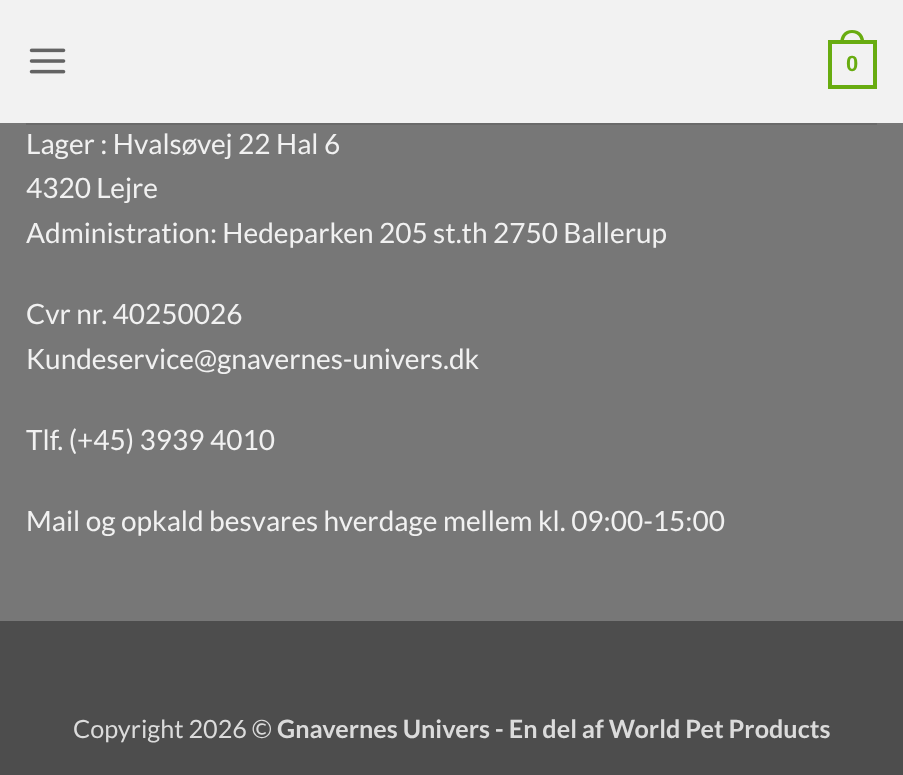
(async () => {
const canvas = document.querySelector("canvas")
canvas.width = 903
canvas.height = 775
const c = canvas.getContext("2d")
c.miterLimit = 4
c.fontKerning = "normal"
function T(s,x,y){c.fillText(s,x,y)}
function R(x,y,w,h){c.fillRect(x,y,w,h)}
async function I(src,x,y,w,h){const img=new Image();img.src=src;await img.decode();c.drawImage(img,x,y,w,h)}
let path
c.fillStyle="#777"
R(0,0,903,775)
c.fillStyle="#ffffffe6"
R(0,0,903,123)
await I("1.png",29,48,37,26)
c.strokeStyle="#68ac10"
c.lineWidth=4
c.strokeRect(830,42,45,45)
c.fillStyle="#68ac10"
path = new Path2D("M852 30c8.5 0 12.5 6 12.5 14h-24.5c0-8 4-14 12-14zm0 3c6.5 0 9 5 9 11h-17.5c0-6 2.5-11 8.5-11z")
c.fill(path,"evenodd")
c.font="bold 22px Liberation Sans"
T("0",846,71)
c.fillStyle="#6a6a6a"
R(26,123,851,2)
c.font="28px Lato"
c.fillStyle="#f1f1f1"
T("Lager : Hvalsøvej 22 Hal 6",26,154)
T("4320 Lejre",26,198)
T("Administration: Hedeparken 205 st.th 2750 Ballerup",26,243)
T("Cvr nr. 40250026",26,324)
T("Kundeservice@gnavernes-univers.dk",26,369)
T("Tlf. (+45) 3939 4010",26,450)
T("Mail og opkald besvares hverdage mellem kl. 09:00-15:00",26,531)
c.fillStyle="#4d4d4d"
R(0,621,903,154)
c.font="25.2px Lato"
c.fillStyle="#dbdbdb"
T("Copyright 2026 ©",73,738)
c.font="bold 25.2px Lato"
T("Gnavernes Univers - En del af World Pet Products",277,738)
})()
